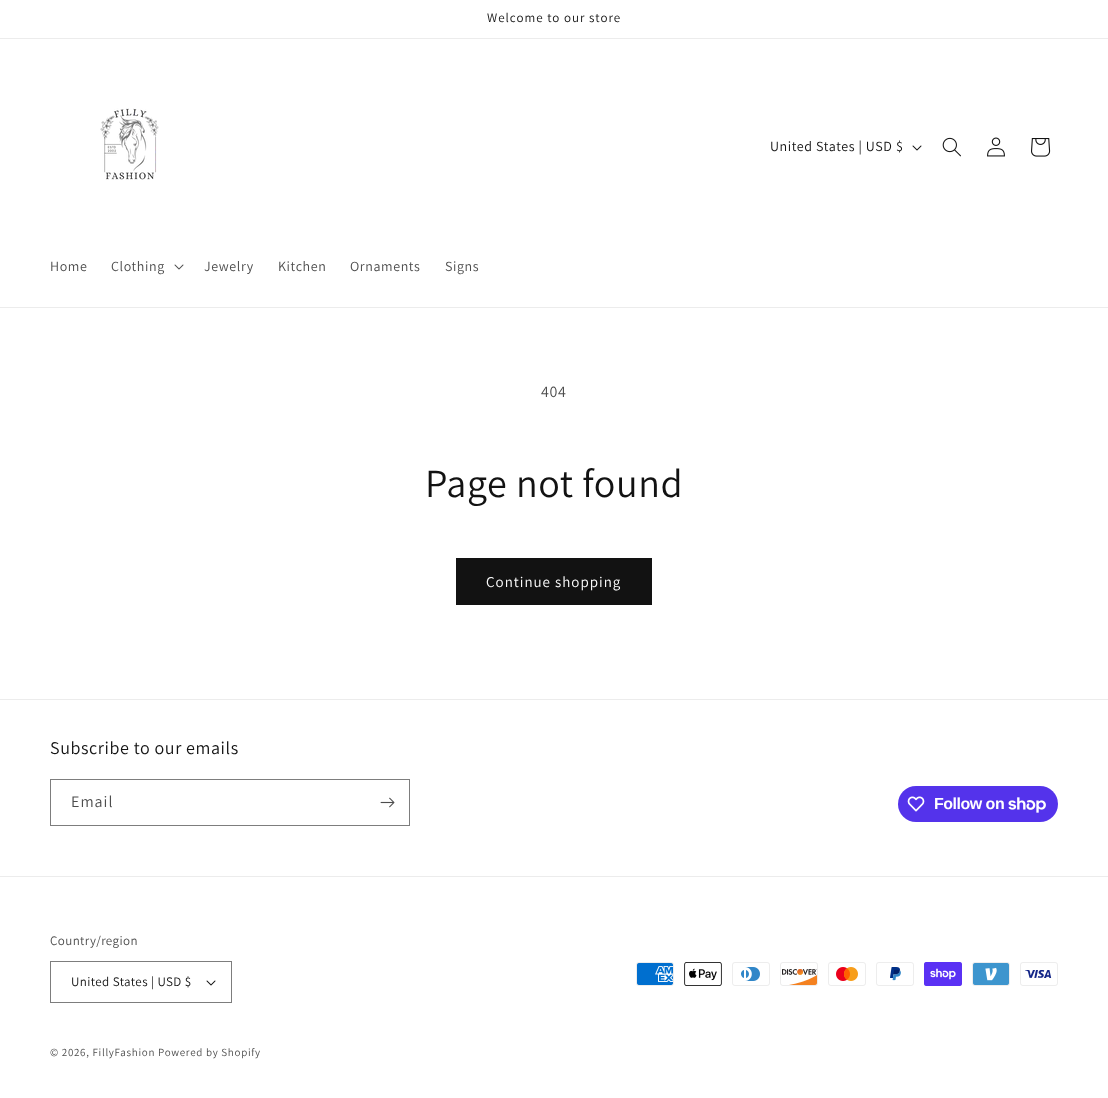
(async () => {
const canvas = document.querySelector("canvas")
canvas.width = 1108
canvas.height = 1098
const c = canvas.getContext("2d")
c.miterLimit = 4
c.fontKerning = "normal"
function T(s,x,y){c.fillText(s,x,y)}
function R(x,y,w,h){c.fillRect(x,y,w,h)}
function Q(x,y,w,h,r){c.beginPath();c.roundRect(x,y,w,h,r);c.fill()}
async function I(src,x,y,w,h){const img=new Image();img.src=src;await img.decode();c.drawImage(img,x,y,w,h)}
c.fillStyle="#fff"
R(0,0,1108,1098)
c.fillStyle="#ececec"
R(0,38,1108,1)
c.letterSpacing="1px"
c.font="13px Assistant"
c.fillStyle="#121212"
T("Welcome to our store",487,22)
c.fillStyle="#ececec"
R(0,307,1108,1)
await I("1.png",100,108,59,72)
c.letterSpacing="0.6px"
c.font="14px Assistant"
c.fillStyle="#121212"
T("United States | USD $",770,151)
await I("2.png",912,145,10,6)
await I("3.png",942,137,19,20)
await I("4.png",987,137,18,20)
await I("5.png",1031,138,20,19)
c.fillStyle="#4d4d4d"
T("Home",50,271)
T("Clothing",111,271)
await I("6.png",174,264,10,6)
T("Jewelry",204,271)
T("Kitchen",278,271)
T("Ornaments",350,271)
T("Signs",445,271)
c.font="16px Assistant"
T("404",541,397)
c.font="40px Assistant"
c.fillStyle="#121212"
T("Page not found",425,497)
R(456,558,196,47)
c.letterSpacing="1px"
c.font="15px Assistant"
c.fillStyle="#fff"
T("Continue shopping",486,587)
c.fillStyle="#ececec"
R(0,699,1108,1)
c.letterSpacing="0.6px"
c.font="18px Assistant"
c.fillStyle="#121212"
T("Subscribe to our emails",50,754)
c.strokeStyle="#7d7d7d"
c.strokeRect(50.5,779.5,359,46)
c.letterSpacing="1px"
c.font="16px Assistant"
c.fillStyle="#4d4d4d"
T("Email",71,807)
await I("7.png",380,797,15,11)
c.fillStyle="#5433eb"
Q(898,786,160,36,18)
await I("8.png",907,796,18,16)
c.letterSpacing="-0.5px"
c.font="bold 16px Liberation Sans"
c.fillStyle="#fff"
T("Follow on",934,809)
await I("9.png",1008,797,38,16)
c.fillStyle="#ececec"
R(0,876,1108,1)
c.letterSpacing="0.4px"
c.font="13px Assistant"
c.fillStyle="#4d4d4d"
T("Country/region",50,945)
await I("2.png",206,980,10,6)
c.strokeRect(50.5,961.5,181,41)
c.fillStyle="#121212"
T("United States | USD $",71,986)
await I("10.png",636,962,38,24)
await I("11.png",684,962,38,24)
await I("12.png",732,962,38,24)
await I("13.png",780,962,38,24)
await I("14.png",828,962,38,24)
await I("15.png",876,962,38,24)
await I("16.png",924,962,38,24)
await I("17.png",972,962,38,24)
await I("18.png",1020,962,38,24)
c.letterSpacing="0.7px"
c.font="11px Assistant"
c.fillStyle="#4d4d4d"
T("© 2026, FillyFashion Powered by Shopify",50,1056)
})()
